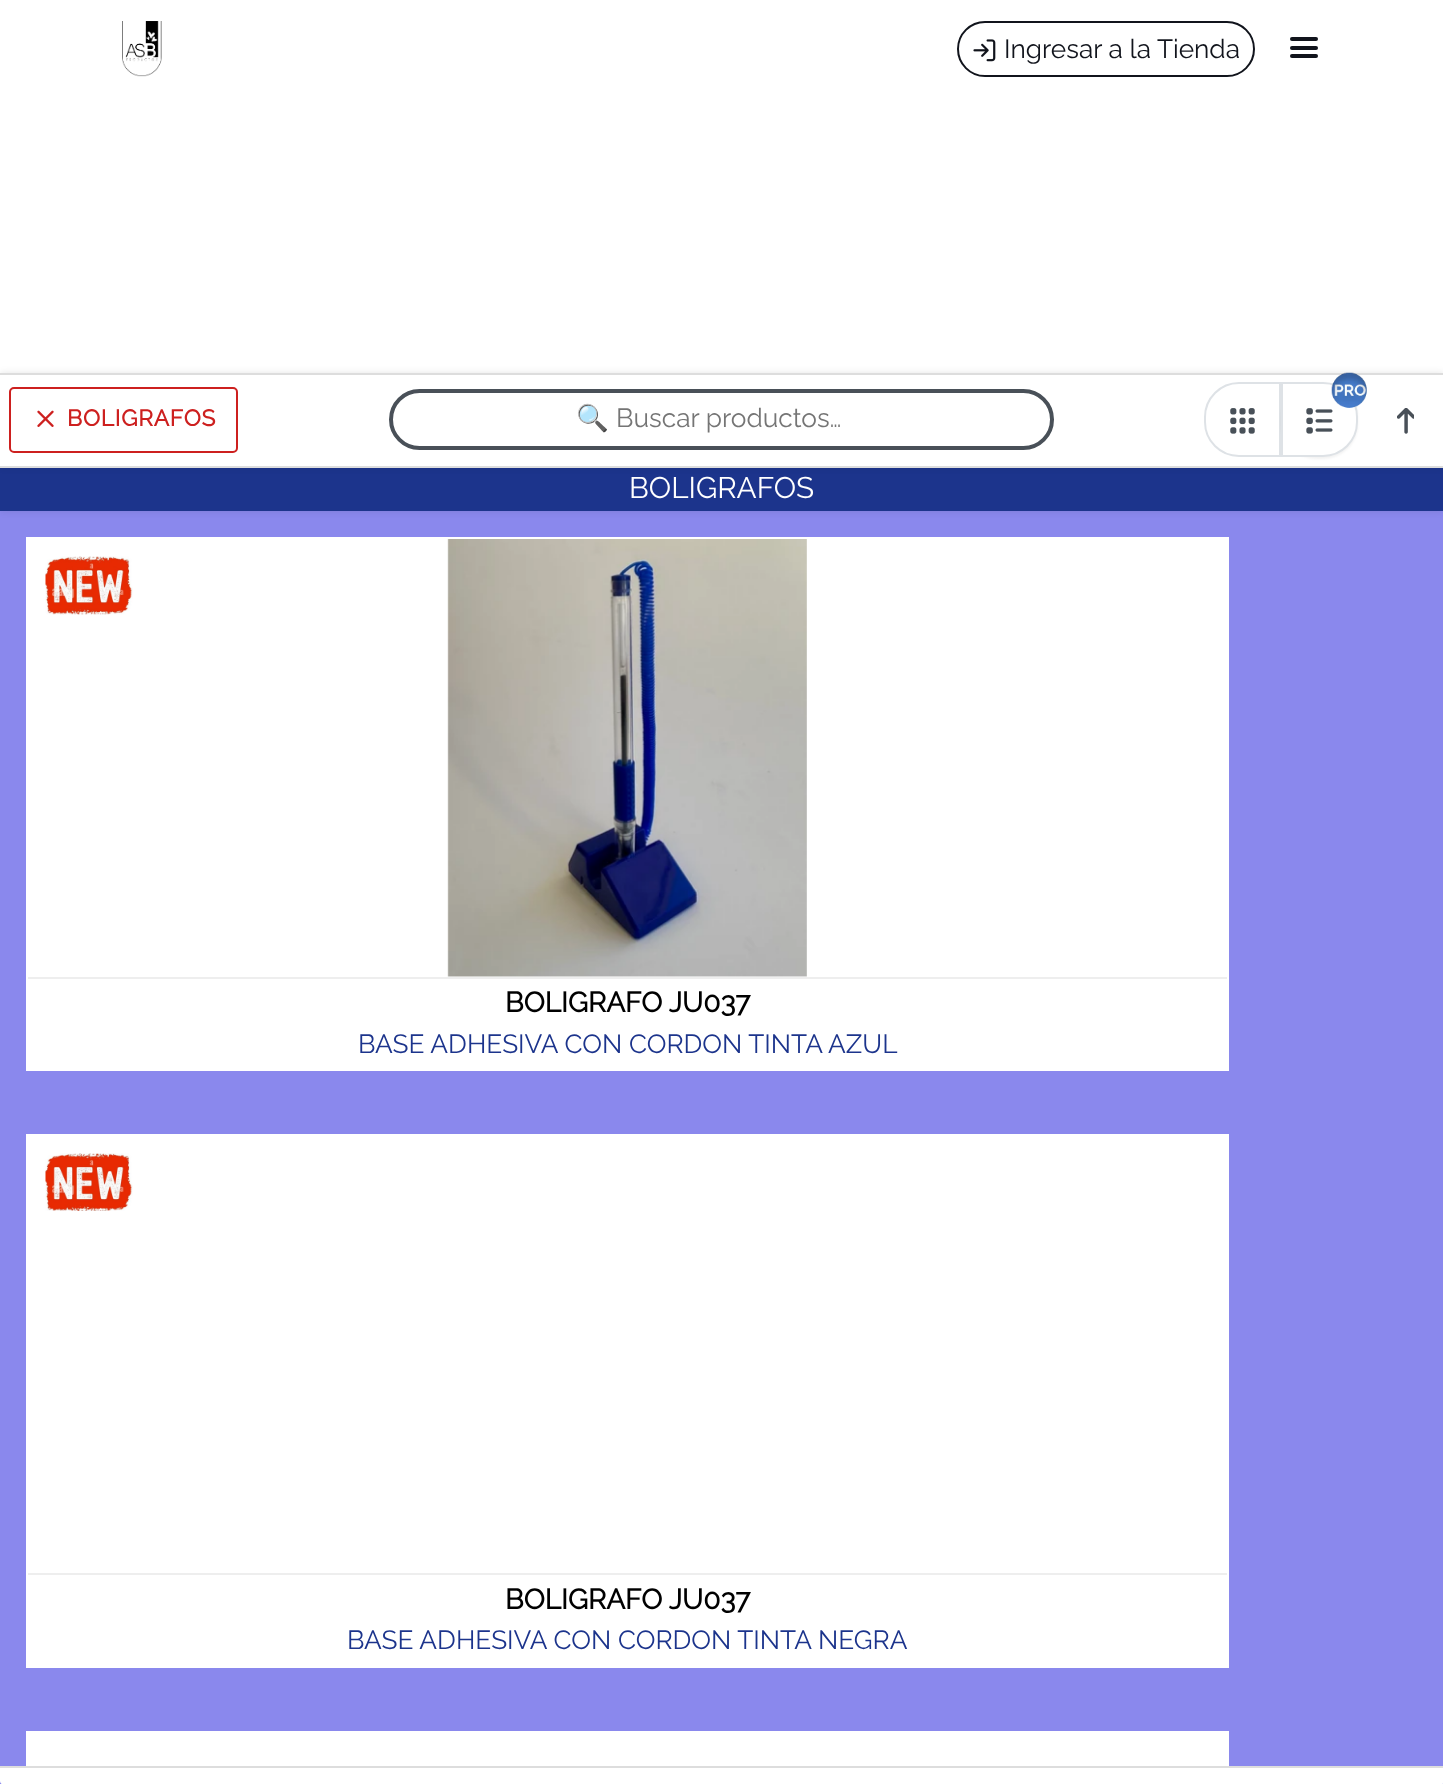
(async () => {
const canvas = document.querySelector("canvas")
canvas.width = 1443
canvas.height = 1784
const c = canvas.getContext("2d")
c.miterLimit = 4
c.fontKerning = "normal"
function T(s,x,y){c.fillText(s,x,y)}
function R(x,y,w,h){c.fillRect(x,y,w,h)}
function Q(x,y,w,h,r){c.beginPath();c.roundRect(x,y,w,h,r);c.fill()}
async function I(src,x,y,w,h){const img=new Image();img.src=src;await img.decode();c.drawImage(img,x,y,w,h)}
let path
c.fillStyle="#8a88ed"
R(0,0,1443,1784)
c.fillStyle="#fff"
R(0,0,1443,373)
await I("1.png",122,21,40,56)
c.beginPath()
c.roundRect(958,22,296,54,27)
c.strokeStyle="#11141c"
c.lineWidth=2
c.stroke()
await I("2.png",973,39,23,23)
c.font="100 26.25px Raleway"
c.fillStyle="#11141c"
T("Ingresar a la Tienda",1004,58)
Q(1290,37,28,4,2)
Q(1290,54,28,4,2)
Q(1290,46,28,4,2)
c.fillStyle="#0000001a"
c.filter="blur(3.5px)"
c.beginPath()
c.rect(0,467,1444,44)
c.fill()
c.filter="none"
c.fillStyle="#1c348c"
R(0,468,1443,43)
c.fillStyle="#0000001a"
c.filter="blur(3.5px)"
c.beginPath()
c.rect(0,373,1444,94)
c.fill()
c.filter="none"
c.fillStyle="#fff"
R(0,375,1443,91)
c.fillStyle="#ddd"
R(0,373,1443,2)
R(0,466,1443,2)
c.beginPath()
c.roundRect(10,388,227,64,4)
c.strokeStyle="#cd201f"
c.stroke()
await I("3.png",37,410,17,17)
c.letterSpacing="0.75px"
c.font="bold 22.75px Raleway"
c.fillStyle="#cd201f"
T("BOLIGRAFOS",67,426)
c.beginPath()
c.roundRect(391,391,661,57,28.5)
c.strokeStyle="#495058"
c.lineWidth=4
c.stroke()
c.letterSpacing="0px"
c.font="26.25px Noto Color Emoji"
c.fillStyle="#757575"
T("🔍",576,427)
c.font="100 26.25px Raleway"
T("Buscar productos…",616,427)
c.beginPath()
c.roundRect(1205,383,75,73,[34,0,0,34])
c.strokeStyle="#dee2e6"
c.lineWidth=2
c.stroke()
await I("4.png",1230,408,25,26)
c.fillStyle="#0000000d"
c.filter="blur(1px)"
c.beginPath()
c.roundRect(1281,383,77,76,35)
c.fill()
c.filter="none"
c.fillStyle="#fff"
c.beginPath()
c.roundRect(1282,383,75,73,[0,34,34,0])
c.fill()
c.stroke()
await I("5.png",1331,372,36,36)
await I("6.png",1306,408,27,26)
await I("7.png",1397,408,17,26)
c.font="100 29.75px Raleway"
T("BOLIGRAFOS",629,498)
R(26,537,1203,534)
await I("8.png",45,556,88,59)
await I("9.png",447,539,360,438)
c.fillStyle="#eee"
R(28,977,1199,2)
c.font="bold 28px Raleway"
c.fillStyle="#000"
T("BOLIGRAFO JU037",505,1012)
c.font="100 26.25px Raleway"
c.fillStyle="#1c348c"
T("BASE ADHESIVA CON CORDON TINTA AZUL",358,1053)
c.fillStyle="#fff"
R(26,1134,1203,534)
await I("10.png",45,1153,88,58)
c.fillStyle="#eee"
R(28,1573,1199,2)
c.font="bold 28px Raleway"
c.fillStyle="#000"
T("BOLIGRAFO JU037",505,1609)
c.font="100 26.25px Raleway"
c.fillStyle="#1c348c"
T("BASE ADHESIVA CON CORDON TINTA NEGRA",347,1649)
c.fillStyle="#fff"
R(26,1731,1203,35)
path = new Path2D("M0 1766h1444v15c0 2-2 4-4 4h-1436c-2 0-4-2-4-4z")
c.fill(path)
c.fillStyle="#ddd"
R(0,1766,1443,2)
})()
